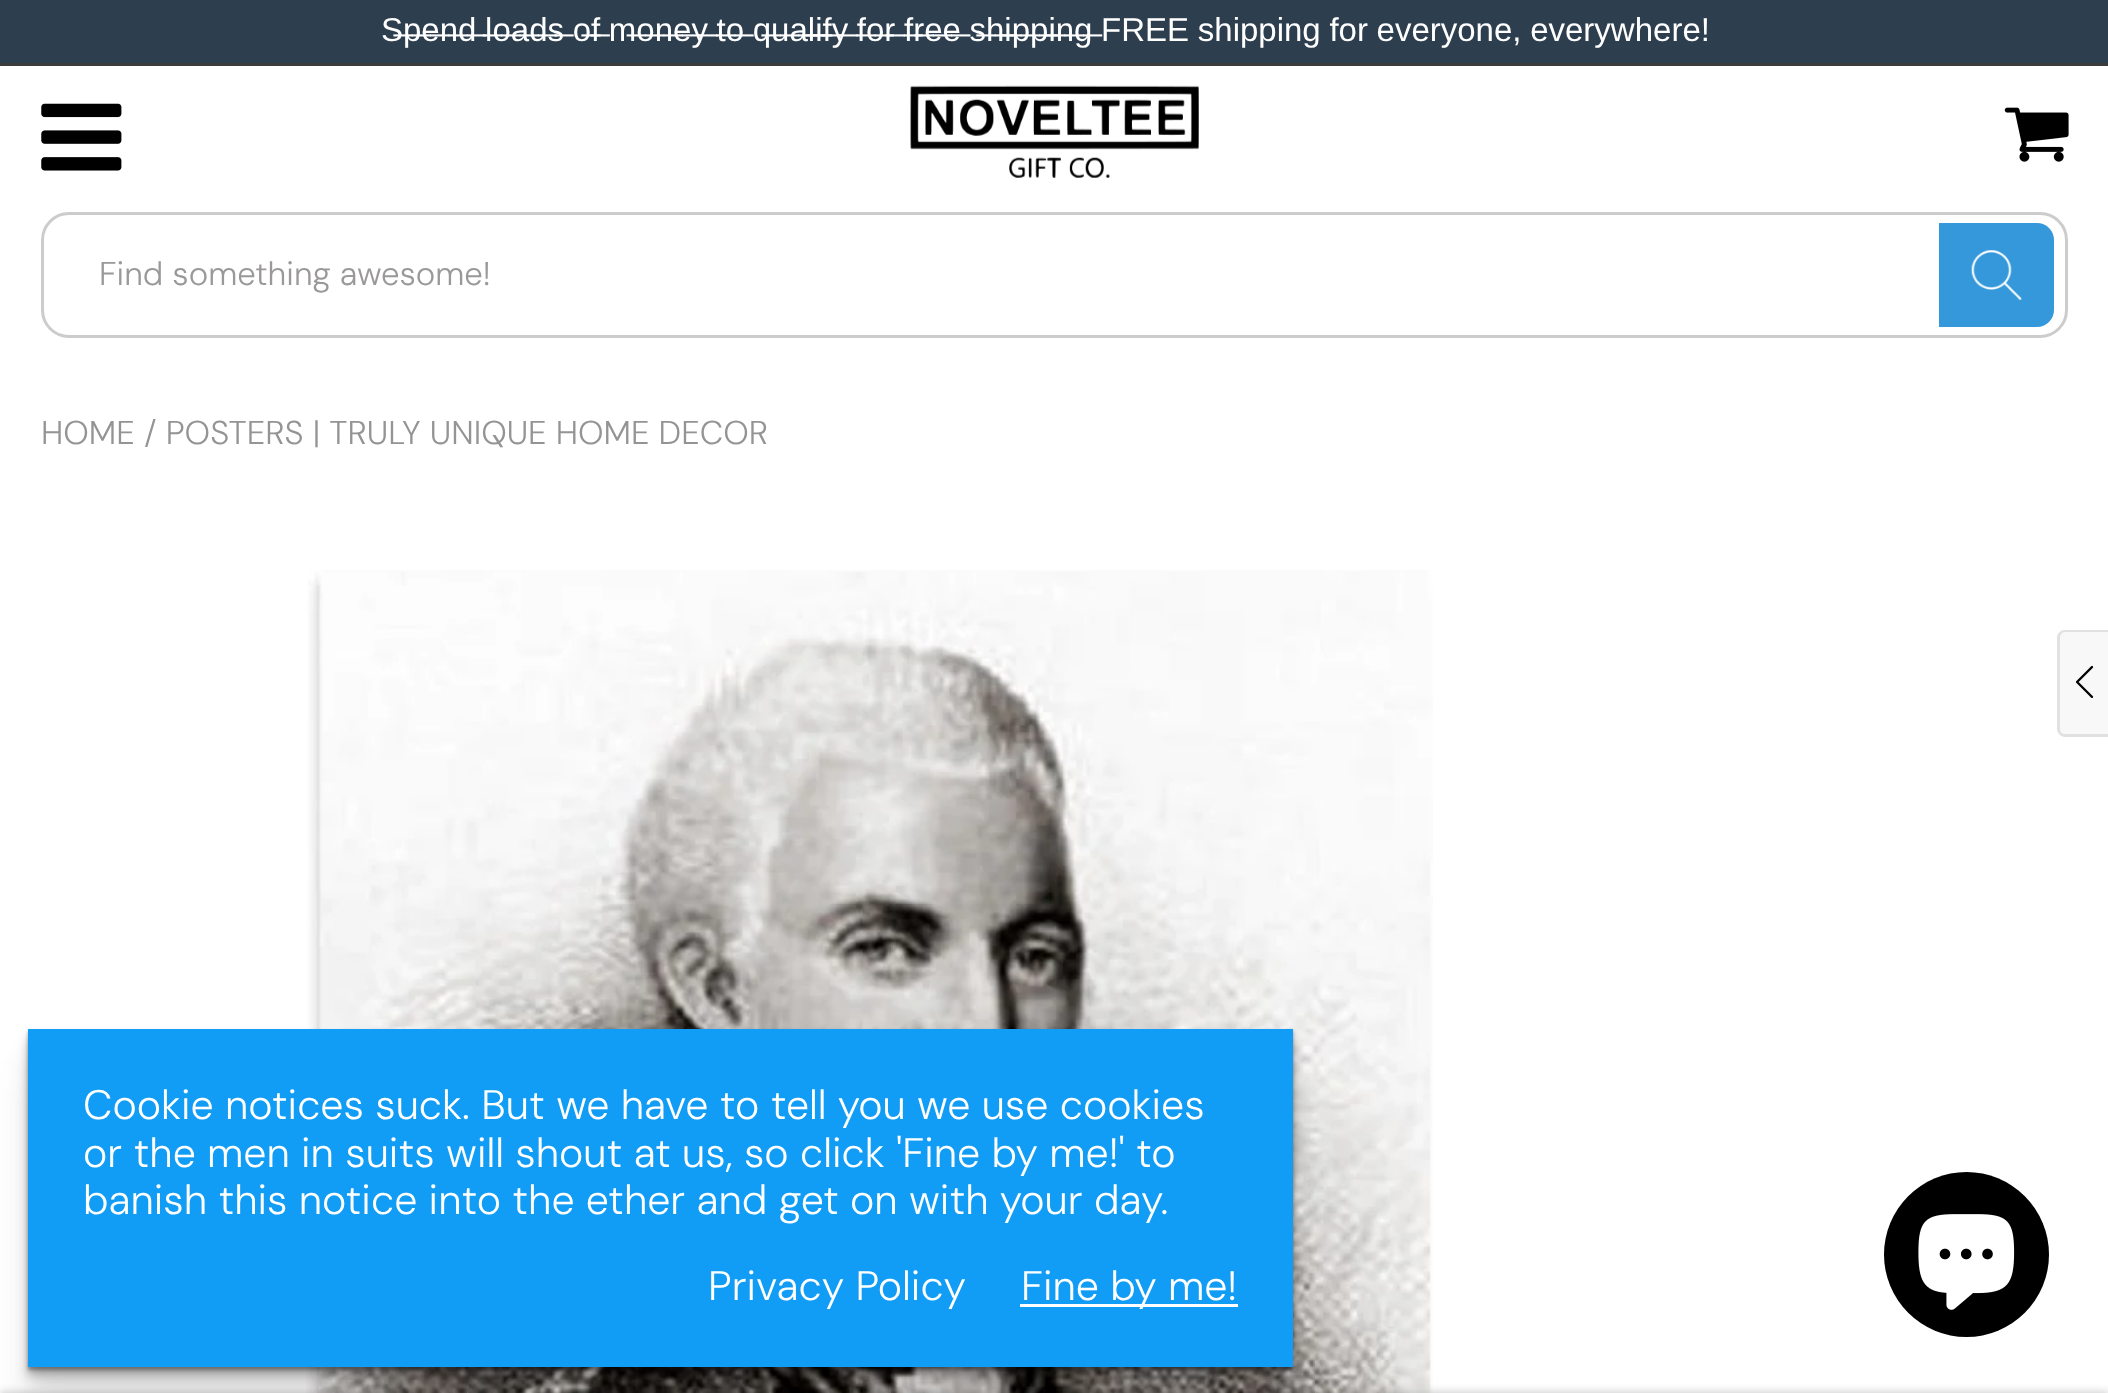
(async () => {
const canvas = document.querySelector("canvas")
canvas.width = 2108
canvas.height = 1393
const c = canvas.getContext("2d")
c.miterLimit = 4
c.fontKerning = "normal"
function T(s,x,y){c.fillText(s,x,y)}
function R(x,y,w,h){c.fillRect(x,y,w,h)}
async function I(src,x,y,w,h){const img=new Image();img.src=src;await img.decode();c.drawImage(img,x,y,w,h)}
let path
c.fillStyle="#fff"
R(0,0,2108,1393)
c.fillStyle="#2d3e4f"
R(0,0,2108,63)
c.fillStyle="#3b3b3b"
R(0,63,2108,3)
c.wordSpacing="-0.5px"
c.font="33px Liberation Sans"
c.fillStyle="#fff"
T("S̶p̶e̶n̶d̶ l̶o̶a̶d̶s̶ o̶f̶ m̶o̶n̶e̶y̶ t̶o̶ q̶u̶a̶l̶i̶f̶y̶ f̶o̶r̶ f̶r̶e̶e̶ s̶h̶i̶p̶p̶i̶n̶g̶ FREE shipping for everyone, everywhere!",381,41)
await I("1.png",41,103,81,68)
await I("2.png",910,85,289,93)
await I("3.png",2004,107,65,55)
c.beginPath()
c.roundRect(42.5,213.5,2024,123,26.5)
c.strokeStyle="#ccc"
c.lineWidth=3
c.stroke()
c.wordSpacing="0px"
c.font="300 33px DM Sans"
c.fillStyle="#9b9898"
T("Find something awesome!",99,285)
c.fillStyle="#3498db"
c.beginPath()
c.roundRect(1939,223,115,104,[0,17,17,0])
c.fill()
await I("4.png",1971,250,51,50)
c.fillStyle="#949494"
T("HOME",41,444)
T("/ POSTERS | TRULY UNIQUE HOME DECOR",144,444)
await I("5.png",306,570,1127,823)
c.fillStyle="#00000033"
c.filter="blur(4px)"
c.beginPath()
c.rect(0,1392,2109,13)
c.fill()
c.filter="none"
c.fillStyle="#f8f8f8"
path = new Path2D("M2065 630h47v107h-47c-4.5 0-8-3.5-8-8v-91c0-4.5 3.5-8 8-8z")
c.fill(path)
c.fillStyle="#e1e1e1"
path = new Path2D("M2065 630h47v107h-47c-4 0-8-4-8-8v-91c0-5 4-8 8-8zm0 2h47v102h-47c-3 0-5-2-5-5v-91c0-3 2-6 5-6z")
c.fill(path,"evenodd")
await I("6.png",2075,665,19,33)
c.fillStyle="#0000000d"
c.filter="blur(22px)"
c.beginPath()
c.rect(28,1073,1265,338)
c.fill()
c.filter="none"
c.fillStyle="#0000001a"
c.filter="blur(11px)"
c.beginPath()
c.rect(28,1051,1265,338)
c.fill()
c.filter="none"
c.fillStyle="#00000026"
c.filter="blur(5.5px)"
c.beginPath()
c.rect(28,1040,1265,338)
c.fill()
c.filter="none"
c.fillStyle="#00000033"
c.filter="blur(3px)"
c.beginPath()
c.rect(28,1034,1265,338)
c.fill()
c.filter="none"
c.fillStyle="#00000040"
c.filter="blur(1.5px)"
c.beginPath()
c.rect(28,1031,1265,339)
c.fill()
c.filter="none"
c.fillStyle="#119cf5"
R(28,1029,1265,338)
c.font="300 41.25px DM Sans"
c.fillStyle="#fff"
T("Cookie notices suck. But we have to tell you we use cookies",83,1119)
T("or the men in suits will shout at us, so click 'Fine by me!' to",83,1167)
T("banish this notice into the ether and get on with your day.",83,1214)
T("Privacy Policy",708,1300)
R(1020,1304,218,3)
T("Fine by me!",1021,1300)
c.fillStyle="#000"
c.beginPath()
c.arc(1966.5,1254.5,82.5,0,7)
c.fill()
await I("7.png",1918,1214,97,96)
})()
